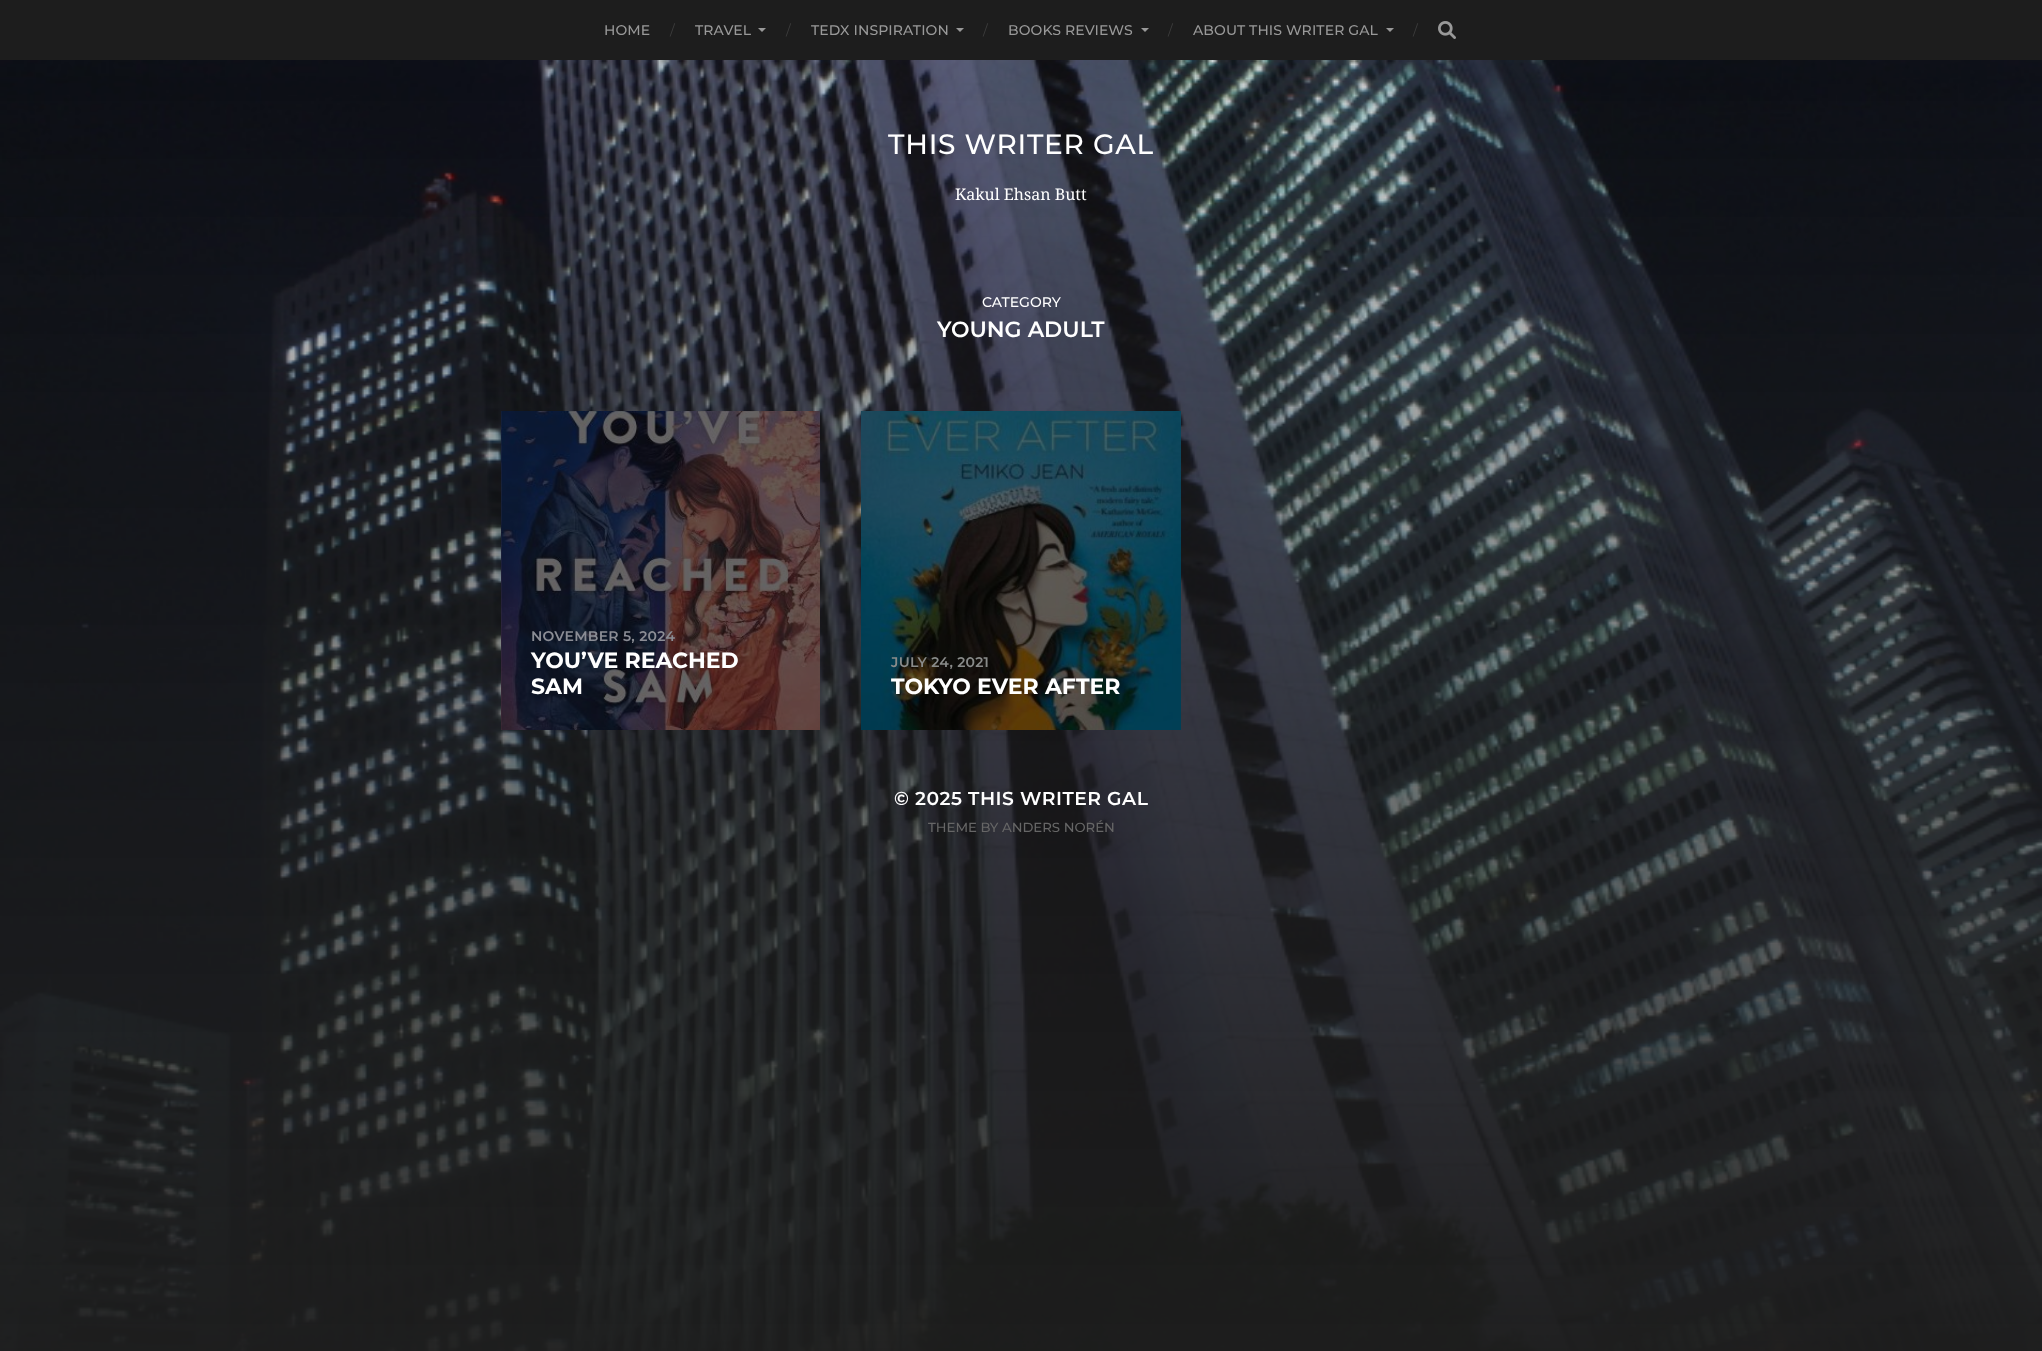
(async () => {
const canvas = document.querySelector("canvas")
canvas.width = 2042
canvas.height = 1351
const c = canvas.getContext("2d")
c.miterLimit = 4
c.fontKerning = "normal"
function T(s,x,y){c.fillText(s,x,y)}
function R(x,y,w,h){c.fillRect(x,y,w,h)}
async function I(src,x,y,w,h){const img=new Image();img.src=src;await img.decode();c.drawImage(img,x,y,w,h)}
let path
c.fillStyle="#1d1d1d"
R(0,0,2042,1351)
c.letterSpacing="0.1px"
c.font="500 14px Montserrat"
c.fillStyle="#999"
T("HOME",604,35)
c.letterSpacing="0px"
c.font="14px Montserrat"
c.fillStyle="#3d3d3d"
T("/",670,35)
c.letterSpacing="0.1px"
c.font="500 14px Montserrat"
c.fillStyle="#999"
T("TRAVEL",695,35)
path = new Path2D("M758 28h8l-4 4z")
c.fill(path)
c.letterSpacing="0px"
c.font="14px Montserrat"
c.fillStyle="#3d3d3d"
T("/",786,35)
c.letterSpacing="0.1px"
c.font="500 14px Montserrat"
c.fillStyle="#999"
T("TEDX INSPIRATION",811,35)
path = new Path2D("M956 28h8l-4 4z")
c.fill(path)
c.letterSpacing="0px"
c.font="14px Montserrat"
c.fillStyle="#3d3d3d"
T("/",983,35)
c.letterSpacing="0.1px"
c.font="500 14px Montserrat"
c.fillStyle="#999"
T("BOOKS REVIEWS",1008,35)
path = new Path2D("M1141 28h8l-4 4z")
c.fill(path)
c.letterSpacing="0px"
c.font="14px Montserrat"
c.fillStyle="#3d3d3d"
T("/",1168,35)
c.letterSpacing="0.1px"
c.font="500 14px Montserrat"
c.fillStyle="#999"
T("ABOUT THIS WRITER GAL",1193,35)
path = new Path2D("M1386 28h8l-4 4z")
c.fill(path)
c.letterSpacing="0px"
c.font="14px Montserrat"
c.fillStyle="#3d3d3d"
T("/",1413,35)
await I("1.png",1438,21,18,18)
await I("2.png",0,60,2042,1291)
c.letterSpacing="0.75px"
c.font="500 28px Montserrat"
c.fillStyle="#fff"
T("THIS WRITER GAL",888,154)
c.letterSpacing="0px"
c.font="16px Droid Serif"
T("Kakul Ehsan Butt",955,200)
c.font="500 14px Montserrat"
T("CATEGORY",982,307)
c.font="600 22px Montserrat"
T("YOUNG ADULT",937,337)
await I("3.png",501,411,319,319)
c.letterSpacing="0.25px"
c.font="600 14px Montserrat"
c.fillStyle="#8b8d95"
T("NOVEMBER 5, 2024",531,641)
c.letterSpacing="0px"
c.font="bold 22px Montserrat"
c.fillStyle="#fff"
T("YOU’VE REACHED",531,668)
T("SAM",531,694)
await I("4.png",861,411,320,319)
c.letterSpacing="0.25px"
c.font="600 14px Montserrat"
c.fillStyle="#898b8a"
T("JULY 24, 2021",891,667)
c.letterSpacing="0px"
c.font="bold 22px Montserrat"
c.fillStyle="#fff"
T("TOKYO EVER AFTER",891,694)
c.letterSpacing="0.5px"
c.font="600 18.75px Montserrat"
T("© 2025 THIS WRITER GAL",894,805)
c.letterSpacing="0px"
c.font="500 13.25px Montserrat"
c.fillStyle="#666"
T("THEME BY ANDERS NORÉN",928,832)
})()
